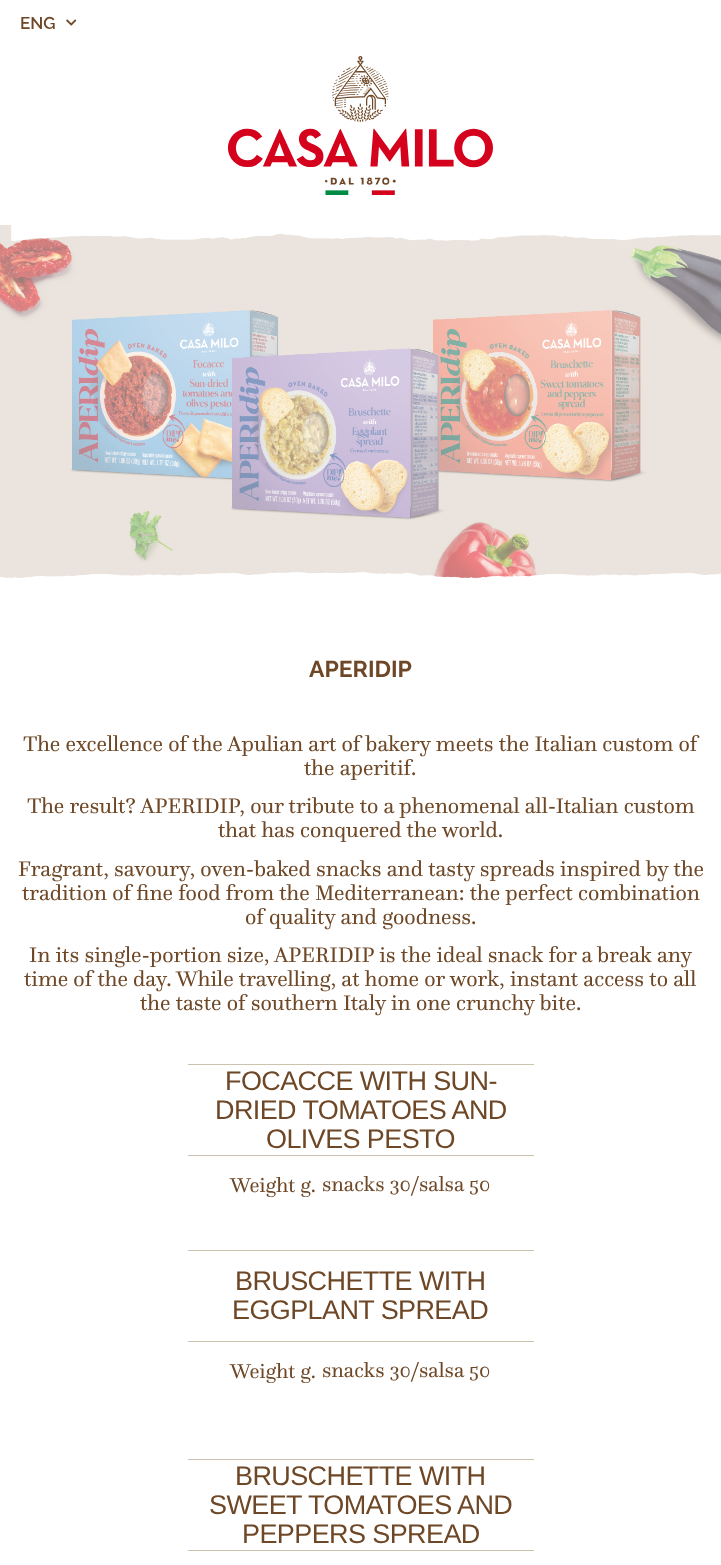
(async () => {
const canvas = document.querySelector("canvas")
canvas.width = 721
canvas.height = 1565
const c = canvas.getContext("2d")
c.miterLimit = 4
c.fontKerning = "normal"
function T(s,x,y){c.fillText(s,x,y)}
function R(x,y,w,h){c.fillRect(x,y,w,h)}
async function I(src,x,y,w,h){const img=new Image();img.src=src;await img.decode();c.drawImage(img,x,y,w,h)}
c.fillStyle="#fff"
R(0,0,721,1565)
c.font="600 17px Raleway"
c.fillStyle="#6e4726"
T("ENG",20,29)
await I("1.png",66,19,11,7)
await I("2.png",228,56,265,139)
await I("4.png",0,225,721,354)
await I("3.png",11,225,710,16)
await I("5.png",0,572,721,16)
c.font="bold 23px Raleway"
T("APERIDIP",309,677)
c.font="22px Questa"
T("The excellence of the Apulian art of bakery meets the Italian custom of",23,751)
T("the aperitif.",304,775)
T("The result? APERIDIP, our tribute to a phenomenal all-Italian custom",27,813)
T("that has conquered the world.",218,837)
T("Fragrant, savoury, oven-baked snacks and tasty spreads inspired by the",18,876)
T("tradition of fine food from the Mediterranean: the perfect combination",22,900)
T("of quality and goodness.",245,924)
T("In its single-portion size, APERIDIP is the ideal snack for a break any",29,962)
T("time of the day. While travelling, at home or work, instant access to all",24,986)
T("the taste of southern Italy in one crunchy bite.",140,1010)
c.fillStyle="#cdc2ae"
R(188,1064,346,1)
c.letterSpacing="-0.6px"
c.font="27px Liberation Sans"
c.fillStyle="#6e4726"
T("FOCACCE WITH SUN-",225,1090)
T("DRIED TOMATOES AND",215,1119)
T("OLIVES PESTO",266,1148)
c.fillStyle="#cdc2ae"
R(188,1155,346,1)
c.letterSpacing="0px"
c.font="21px Questa"
c.fillStyle="#6e4726"
T("Weight g.",230,1192)
T("snacks 30/salsa 50",322,1191)
c.fillStyle="#cdc2ae"
R(188,1250,346,1)
c.letterSpacing="-0.6px"
c.font="27px Liberation Sans"
c.fillStyle="#6e4726"
T("BRUSCHETTE WITH",235,1290)
T("EGGPLANT SPREAD",232,1319)
c.fillStyle="#cdc2ae"
R(188,1341,346,1)
c.letterSpacing="0px"
c.font="21px Questa"
c.fillStyle="#6e4726"
T("Weight g.",230,1378)
T("snacks 30/salsa 50",322,1377)
c.fillStyle="#cdc2ae"
R(188,1459,346,1)
c.letterSpacing="-0.6px"
c.font="27px Liberation Sans"
c.fillStyle="#6e4726"
T("BRUSCHETTE WITH",235,1485)
T("SWEET TOMATOES AND",209,1514)
T("PEPPERS SPREAD",242,1543)
c.fillStyle="#cdc2ae"
R(188,1550,346,1)
})()
